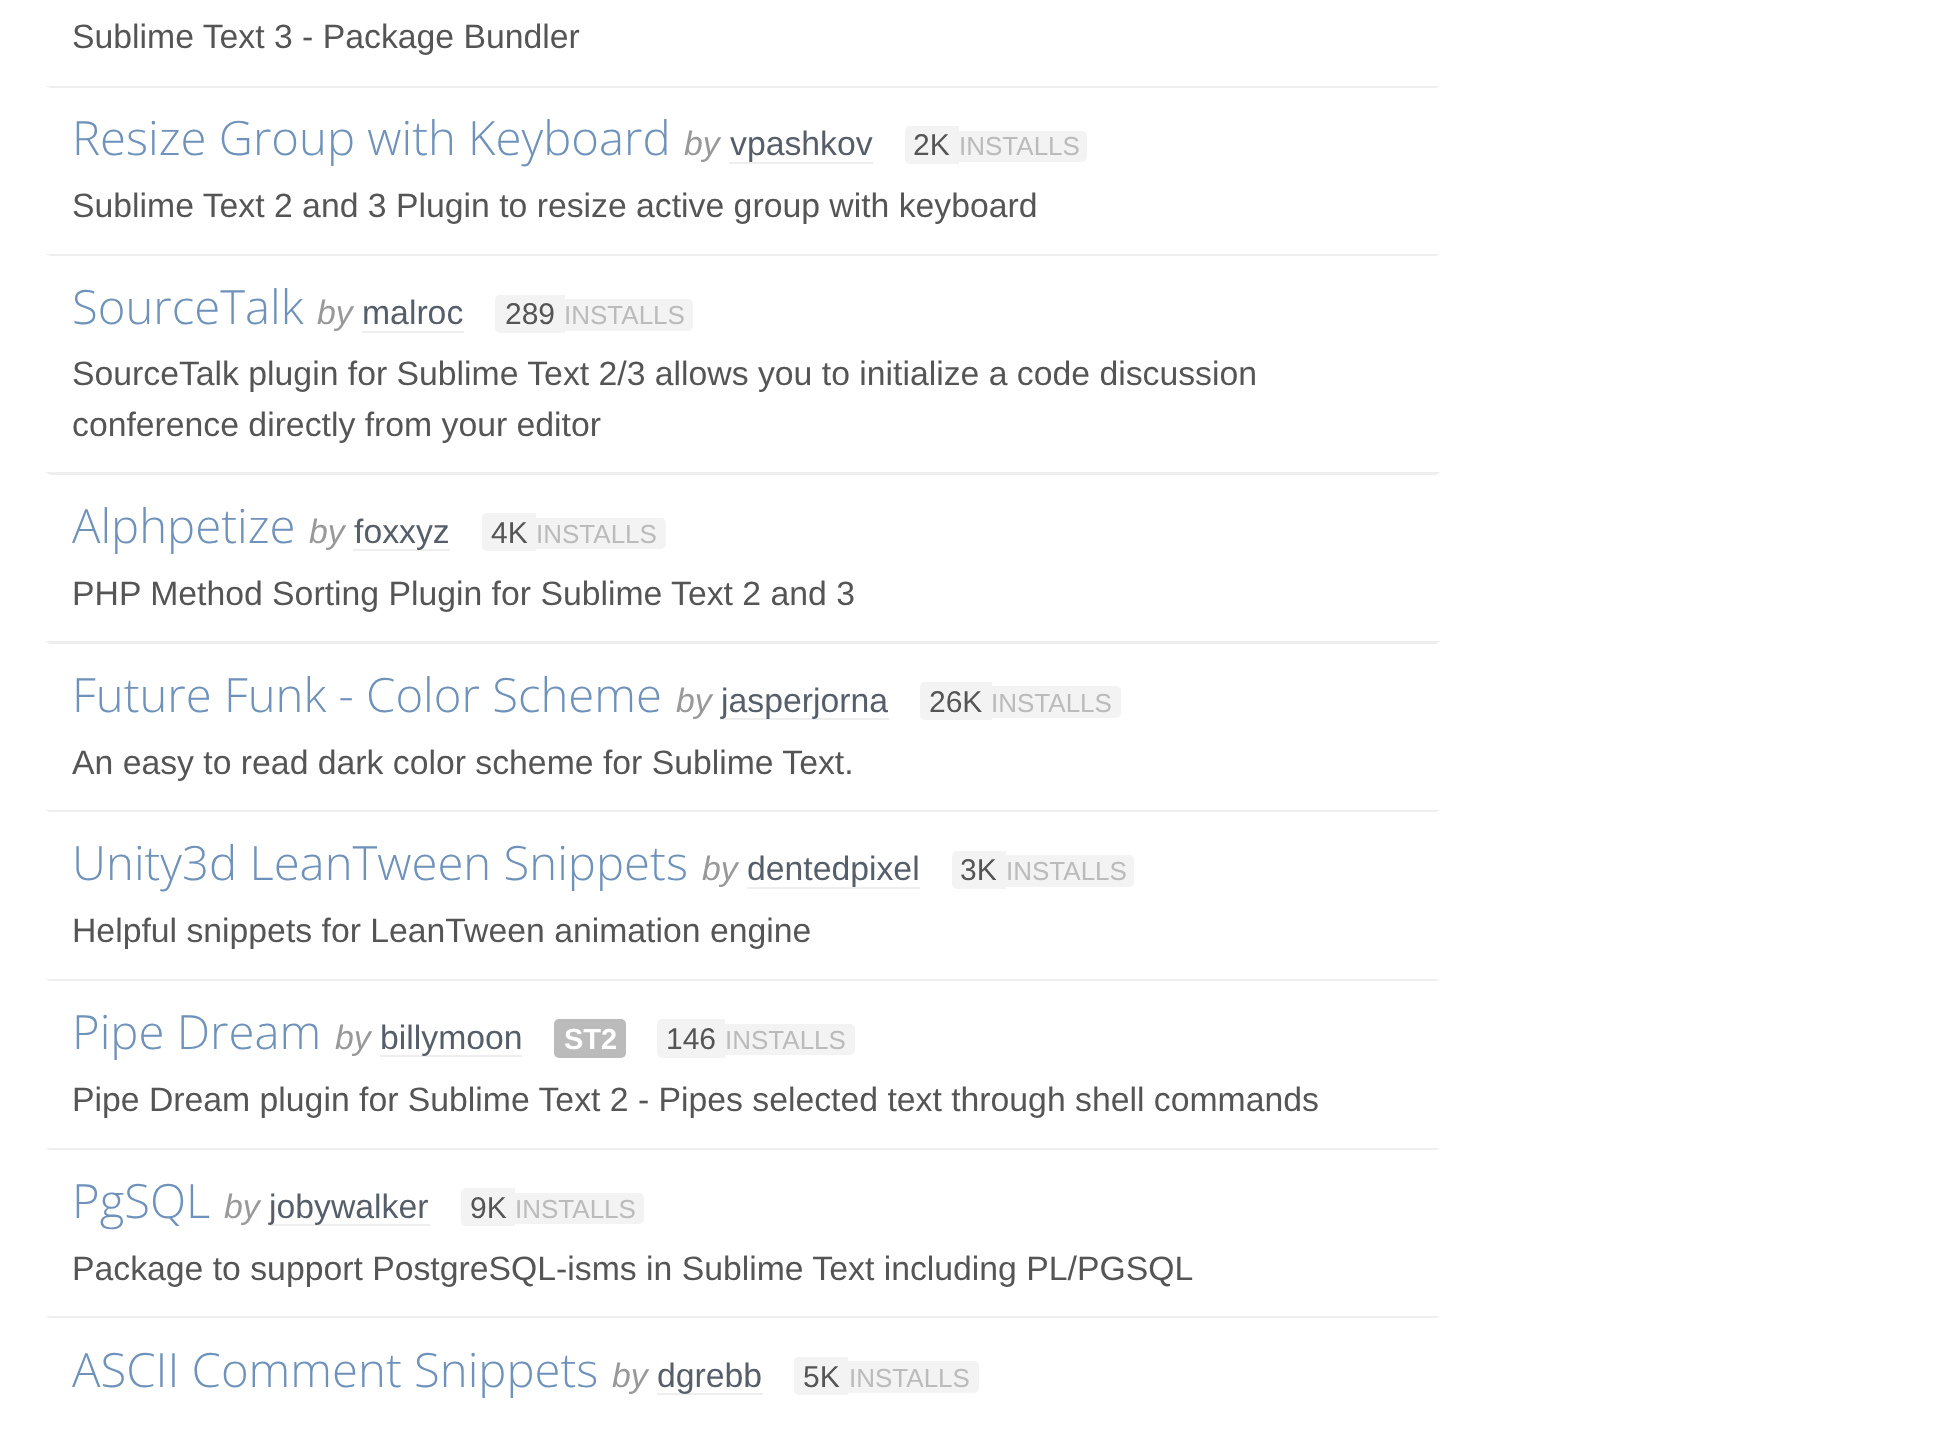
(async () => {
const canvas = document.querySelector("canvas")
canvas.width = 1934
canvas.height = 1433
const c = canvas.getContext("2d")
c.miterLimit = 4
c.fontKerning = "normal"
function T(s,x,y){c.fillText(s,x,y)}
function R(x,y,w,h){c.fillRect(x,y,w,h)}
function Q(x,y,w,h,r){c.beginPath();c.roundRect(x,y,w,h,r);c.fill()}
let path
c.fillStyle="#fff"
R(0,0,1934,1433)
c.font="33.75px Liberation Sans"
c.fillStyle="#555"
T("Sublime Text 3 - Package Bundler",72,48)
c.fillStyle="#eee"
path = new Path2D("M45 86h1395l-4 2h-1386z")
c.fill(path)
c.font="300 47.25px Open Sans"
c.fillStyle="#6f92ba"
T("Resize Group with Keyboard",72,155)
c.font="italic 33.75px Liberation Sans"
c.fillStyle="#999"
T("by",684,155)
c.font="33.75px Liberation Sans"
c.fillStyle="#555e69"
T("vpashkov",730,155)
c.fillStyle="#eee"
R(729,162,144,2)
c.fillStyle="#f3f3f3"
c.beginPath()
c.roundRect(905,126,54,38,[5,0,0,5])
c.fill()
c.font="30px Liberation Sans"
c.fillStyle="#555"
T("2K",913,155)
c.fillStyle="#f3f3f3"
c.beginPath()
c.roundRect(959,131,128,31,[0,5,5,0])
c.fill()
c.font="26px Liberation Sans"
c.fillStyle="#bbb"
T("INSTALLS",959,155)
c.font="33.75px Liberation Sans"
c.fillStyle="#555"
T("Sublime Text 2 and 3 Plugin to resize active group with keyboard",72,217)
c.fillStyle="#eee"
path = new Path2D("M45 254h1395l-4 2h-1386z")
c.fill(path)
c.font="300 47.25px Open Sans"
c.fillStyle="#6f92ba"
T("SourceTalk",72,324)
c.font="italic 33.75px Liberation Sans"
c.fillStyle="#999"
T("by",317,324)
c.font="33.75px Liberation Sans"
c.fillStyle="#555e69"
T("malroc",362,324)
c.fillStyle="#eee"
R(362,331,102,2)
c.fillStyle="#f3f3f3"
c.beginPath()
c.roundRect(495,295,70,38,[5,0,0,5])
c.fill()
c.font="30px Liberation Sans"
c.fillStyle="#555"
T("289",505,324)
c.fillStyle="#f3f3f3"
c.beginPath()
c.roundRect(565,299,128,32,[0,5,5,0])
c.fill()
c.font="26px Liberation Sans"
c.fillStyle="#bbb"
T("INSTALLS",564,324)
c.font="33.75px Liberation Sans"
c.fillStyle="#555"
T("SourceTalk plugin for Sublime Text 2/3 allows you to initialize a code discussion",72,385)
T("conference directly from your editor",72,436)
c.fillStyle="#eee"
path = new Path2D("M45 472h1395l-4 3h-1386z")
c.fill(path)
c.font="300 47.25px Open Sans"
c.fillStyle="#6f92ba"
T("Alphpetize",72,543)
c.font="italic 33.75px Liberation Sans"
c.fillStyle="#999"
T("by",309,543)
c.fillStyle="#eee"
R(353,549,97,2)
c.font="33.75px Liberation Sans"
c.fillStyle="#555e69"
T("foxxyz",354,543)
c.fillStyle="#f3f3f3"
c.beginPath()
c.roundRect(482,513,54,38,[5,0,0,5])
c.fill()
c.font="30px Liberation Sans"
c.fillStyle="#555"
T("4K",491,543)
c.fillStyle="#f3f3f3"
c.beginPath()
c.roundRect(536,518,130,31,[0,5,5,0])
c.fill()
c.font="26px Liberation Sans"
c.fillStyle="#bbb"
T("INSTALLS",536,543)
c.font="33.75px Liberation Sans"
c.fillStyle="#555"
T("PHP Method Sorting Plugin for Sublime Text 2 and 3",72,605)
c.fillStyle="#eee"
path = new Path2D("M45 641h1395l-4 3h-1386z")
c.fill(path)
c.font="300 47.25px Open Sans"
c.fillStyle="#6f92ba"
T("Future Funk - Color Scheme",72,712)
c.font="italic 33.75px Liberation Sans"
c.fillStyle="#999"
T("by",676,712)
c.fillStyle="#eee"
R(720,718,169,2)
c.font="33.75px Liberation Sans"
c.fillStyle="#555e69"
T("jasperjorna",721,712)
c.fillStyle="#f3f3f3"
c.beginPath()
c.roundRect(920,682,72,38,[5,0,0,5])
c.fill()
c.font="30px Liberation Sans"
c.fillStyle="#555"
T("26K",929,712)
c.fillStyle="#f3f3f3"
c.beginPath()
c.roundRect(992,686,129,32,[0,5,5,0])
c.fill()
c.font="26px Liberation Sans"
c.fillStyle="#bbb"
T("INSTALLS",991,712)
c.font="33.75px Liberation Sans"
c.fillStyle="#555"
T("An easy to read dark color scheme for Sublime Text.",72,774)
c.fillStyle="#eee"
path = new Path2D("M45 810h1395l-4 2h-1386z")
c.fill(path)
c.font="300 47.25px Open Sans"
c.fillStyle="#6f92ba"
T("Unity3d LeanTween Snippets",72,880)
c.font="italic 33.75px Liberation Sans"
c.fillStyle="#999"
T("by",702,880)
c.font="33.75px Liberation Sans"
c.fillStyle="#555e69"
T("dentedpixel",747,880)
c.fillStyle="#eee"
R(747,887,173,2)
c.fillStyle="#f3f3f3"
c.beginPath()
c.roundRect(952,851,54,38,[5,0,0,5])
c.fill()
c.font="30px Liberation Sans"
c.fillStyle="#555"
T("3K",960,880)
c.fillStyle="#f3f3f3"
c.beginPath()
c.roundRect(1006,855,128,32,[0,5,5,0])
c.fill()
c.font="26px Liberation Sans"
c.fillStyle="#bbb"
T("INSTALLS",1006,880)
c.font="33.75px Liberation Sans"
c.fillStyle="#555"
T("Helpful snippets for LeanTween animation engine",72,942)
c.fillStyle="#eee"
path = new Path2D("M45 979h1395l-4 2h-1386z")
c.fill(path)
c.font="300 47.25px Open Sans"
c.fillStyle="#6f92ba"
T("Pipe Dream",72,1049)
c.font="italic 33.75px Liberation Sans"
c.fillStyle="#999"
T("by",335,1049)
c.fillStyle="#eee"
R(380,1055,142,2)
c.font="33.75px Liberation Sans"
c.fillStyle="#555e69"
T("billymoon",380,1049)
c.fillStyle="#bbb"
Q(554,1019,72,39,5)
c.font="bold 29px Liberation Sans"
c.fillStyle="#fff"
T("ST2",564,1049)
c.fillStyle="#f3f3f3"
c.beginPath()
c.roundRect(657,1019,68,39,[5,0,0,5])
c.fill()
c.font="30px Liberation Sans"
c.fillStyle="#555"
T("146",666,1049)
c.fillStyle="#f3f3f3"
c.beginPath()
c.roundRect(725,1024,130,31,[0,5,5,0])
c.fill()
c.font="26px Liberation Sans"
c.fillStyle="#bbb"
T("INSTALLS",725,1049)
c.font="33.75px Liberation Sans"
c.fillStyle="#555"
T("Pipe Dream plugin for Sublime Text 2 - Pipes selected text through shell commands",72,1111)
c.fillStyle="#eee"
path = new Path2D("M45 1148h1395l-4 2h-1386z")
c.fill(path)
c.font="300 47.25px Open Sans"
c.fillStyle="#6f92ba"
T("PgSQL",72,1218)
c.font="italic 33.75px Liberation Sans"
c.fillStyle="#999"
T("by",224,1218)
c.fillStyle="#eee"
R(270,1224,160,2)
c.font="33.75px Liberation Sans"
c.fillStyle="#555e69"
T("jobywalker",269,1218)
c.fillStyle="#f3f3f3"
c.beginPath()
c.roundRect(461,1188,54,38,[5,0,0,5])
c.fill()
c.font="30px Liberation Sans"
c.fillStyle="#555"
T("9K",470,1218)
c.fillStyle="#f3f3f3"
c.beginPath()
c.roundRect(515,1193,129,31,[0,5,5,0])
c.fill()
c.font="26px Liberation Sans"
c.fillStyle="#bbb"
T("INSTALLS",515,1218)
c.font="33.75px Liberation Sans"
c.fillStyle="#555"
T("Package to support PostgreSQL-isms in Sublime Text including PL/PGSQL",72,1280)
c.fillStyle="#eee"
path = new Path2D("M45 1316h1395l-4 2h-1386z")
c.fill(path)
c.font="300 47.25px Open Sans"
c.fillStyle="#6f92ba"
T("ASCII Comment Snippets",72,1387)
c.font="italic 33.75px Liberation Sans"
c.fillStyle="#999"
T("by",612,1387)
c.fillStyle="#eee"
R(657,1393,106,2)
c.font="33.75px Liberation Sans"
c.fillStyle="#555e69"
T("dgrebb",657,1387)
c.fillStyle="#f3f3f3"
c.beginPath()
c.roundRect(794,1357,54,38,[5,0,0,5])
c.fill()
c.font="30px Liberation Sans"
c.fillStyle="#555"
T("5K",803,1387)
c.fillStyle="#f3f3f3"
c.beginPath()
c.roundRect(848,1361,131,32,[0,5,5,0])
c.fill()
c.font="26px Liberation Sans"
c.fillStyle="#bbb"
T("INSTALLS",849,1387)
})()
